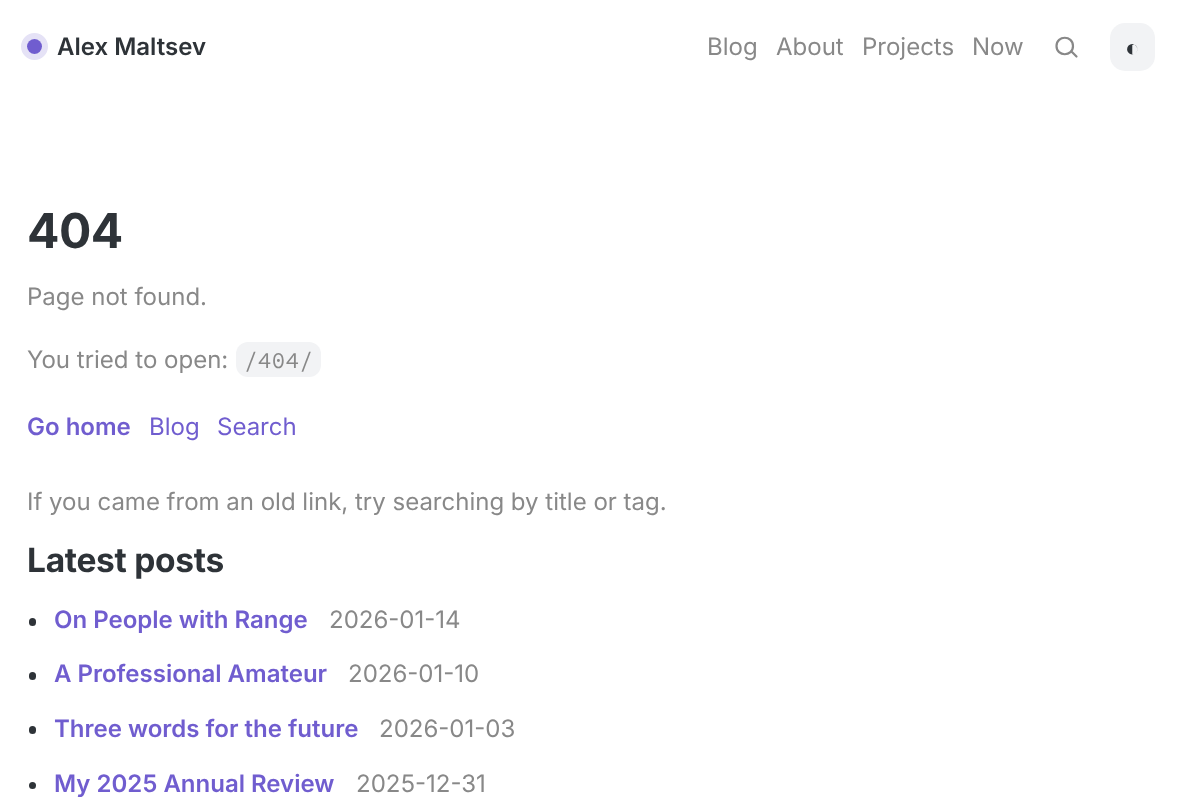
(async () => {
const canvas = document.querySelector("canvas")
canvas.width = 1182
canvas.height = 808
const c = canvas.getContext("2d")
c.miterLimit = 4
c.fontKerning = "normal"
function T(s,x,y){c.fillText(s,x,y)}
function R(x,y,w,h){c.fillRect(x,y,w,h)}
function Q(x,y,w,h,r){c.beginPath();c.roundRect(x,y,w,h,r);c.fill()}
let path
c.fillStyle="#fff"
R(0,0,1182,808)
c.beginPath()
c.arc(34.5,46.5,10.5,0,7)
c.strokeStyle="#e5e2f6"
c.lineWidth=6
c.stroke()
c.fillStyle="#705dcf"
c.beginPath()
c.arc(34.5,46.5,7.5,0,7)
c.fill()
c.font="600 24px Inter"
c.fillStyle="#2e3338"
T("Alex Maltsev",57,55)
c.font="24px Inter"
c.fillStyle="#888"
T("Blog",707,55)
T("About",776,55)
T("Projects",862,55)
T("Now",972,55)
path = new Path2D("M1076.5 56.5l-4.5-4.5m1-6c0 11-16.5 11-16.5 0c0-11 16.5-11 16.5 0z")
c.strokeStyle="#888"
c.lineWidth=2.2
c.lineCap="round"
c.lineJoin="round"
c.stroke(path)
c.fillStyle="#f2f3f5"
Q(1110,23,45,48,15)
c.font="24px Liberation Sans"
c.fillStyle="#2e3338"
T("◐",1125,56)
c.letterSpacing="-0.5px"
c.font="bold 48px Inter"
T("404",27,248)
c.letterSpacing="0px"
c.font="24px Inter"
c.fillStyle="#888"
T("Page not found.",27,305)
T("You tried to open:",27,368)
c.fillStyle="#f2f3f5"
Q(236,342,85,35,12)
c.font="23px Source Code Pro"
c.fillStyle="#888"
T("/404/",244,368)
c.font="600 24px Inter"
c.fillStyle="#705dcf"
T("Go home",27,435)
c.font="24px Inter"
T("Blog",149,435)
T("Search",217,435)
c.fillStyle="#888"
T("If you came from an old link, try searching by title or tag.",27,510)
c.letterSpacing="-0.3px"
c.font="bold 33.5px Inter"
c.fillStyle="#2e3338"
T("Latest posts",27,572)
Q(29,618,7,8,3.5)
c.letterSpacing="0px"
c.font="600 24px Inter"
c.fillStyle="#705dcf"
T("On People with Range",54,628)
c.font="24px Inter"
c.fillStyle="#888"
T("2026-01-14",329,628)
c.fillStyle="#2e3338"
Q(29,672,7,8,3.5)
c.font="600 24px Inter"
c.fillStyle="#705dcf"
T("A Professional Amateur",54,682)
c.font="24px Inter"
c.fillStyle="#888"
T("2026-01-10",348,682)
c.fillStyle="#2e3338"
Q(29,726,7,8,3.5)
c.font="600 24px Inter"
c.fillStyle="#705dcf"
T("Three words for the future",54,737)
c.font="24px Inter"
c.fillStyle="#888"
T("2026-01-03",379,737)
c.fillStyle="#2e3338"
c.beginPath()
c.arc(32.5,785.5,3.5,0,7)
c.fill()
c.font="600 24px Inter"
c.fillStyle="#705dcf"
T("My 2025 Annual Review",54,792)
c.font="24px Inter"
c.fillStyle="#888"
T("2025-12-31",356,792)
})()
